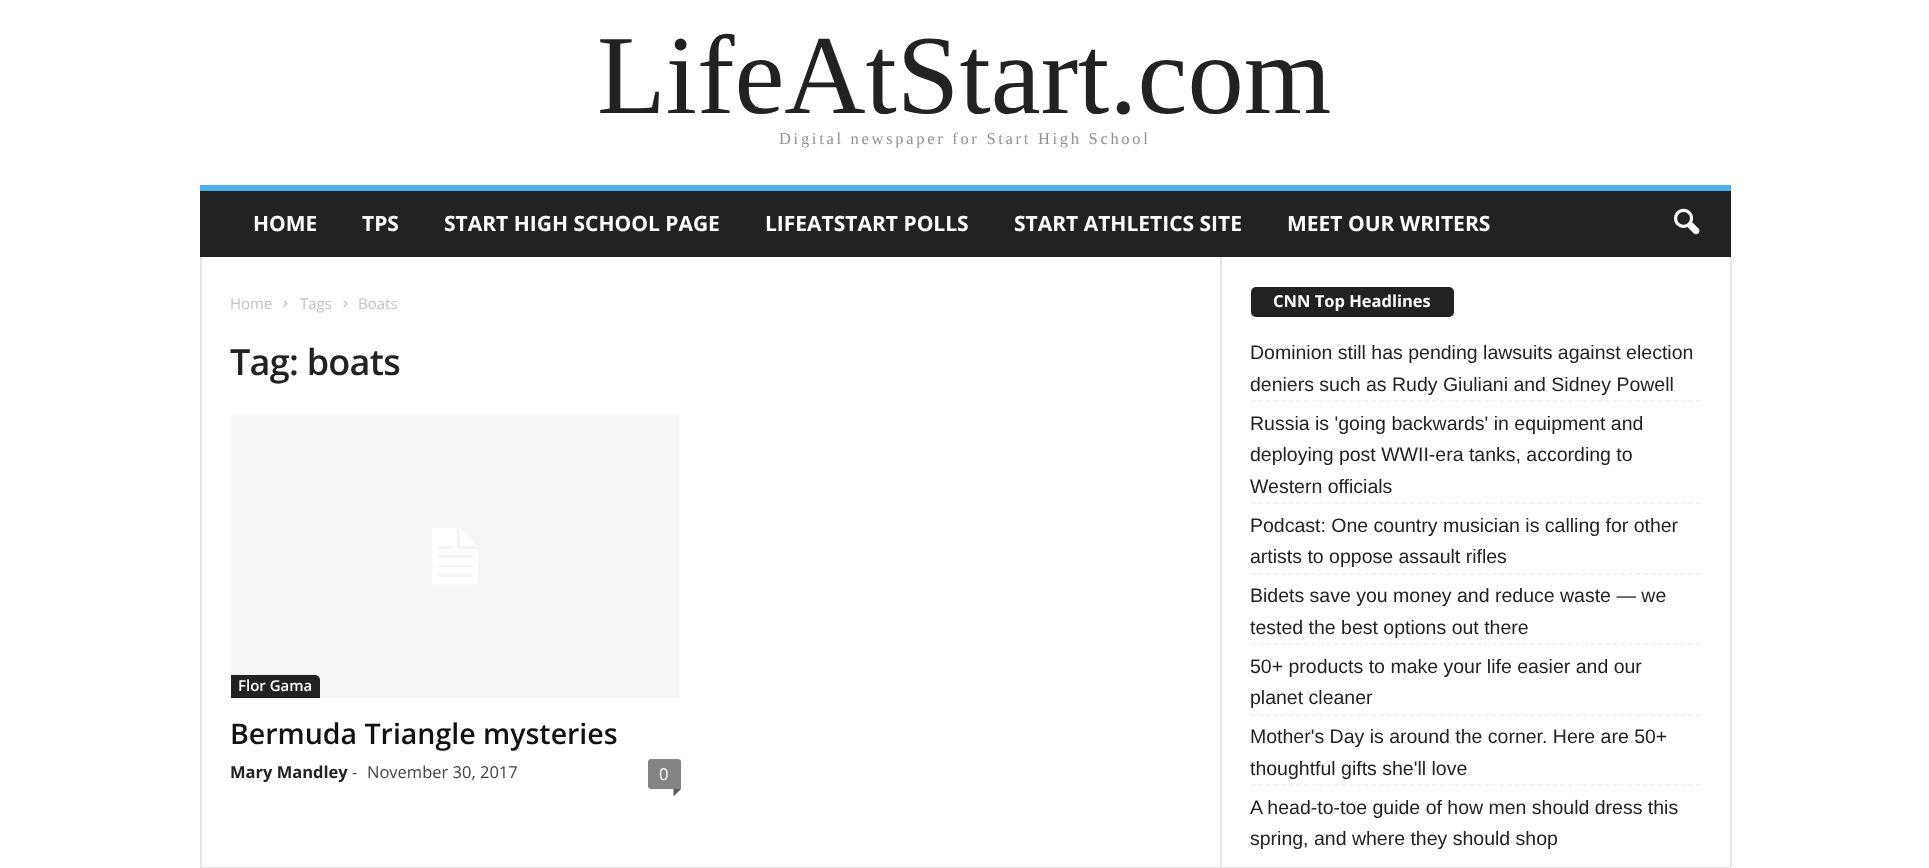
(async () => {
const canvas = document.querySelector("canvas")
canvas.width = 1929
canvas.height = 868
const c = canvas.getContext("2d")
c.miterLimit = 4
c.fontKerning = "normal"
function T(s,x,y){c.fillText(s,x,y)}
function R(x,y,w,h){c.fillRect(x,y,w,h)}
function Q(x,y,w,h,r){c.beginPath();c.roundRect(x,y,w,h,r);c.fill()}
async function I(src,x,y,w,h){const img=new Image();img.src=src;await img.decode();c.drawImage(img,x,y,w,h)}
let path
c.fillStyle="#fff"
R(0,0,1929,868)
c.font="112.5px Liberation Serif"
c.fillStyle="#222"
T("LifeAtStart.com",597,113)
c.letterSpacing="2.7px"
c.font="16.5px Liberation Serif"
c.fillStyle="#919191"
T("Digital newspaper for Start High School",779,144)
c.fillStyle="#222"
R(200,191,1531,66)
c.fillStyle="#4db2ec"
R(200,185,1531,6)
c.letterSpacing="0px"
c.font="bold 21px Open Sans"
c.fillStyle="#fff"
T("HOME",253,231)
T("TPS",362,231)
T("START HIGH SCHOOL PAGE",444,231)
T("LIFEATSTART POLLS",765,231)
T("START ATHLETICS SITE",1014,231)
T("MEET OUR WRITERS",1287,231)
await I("1.png",1674,208,26,27)
c.fillStyle="#e6e6e6"
R(200,867,1531,1)
R(200,257,2,610)
c.font="15px Open Sans"
c.fillStyle="#c3c3c3"
T("Home",230,309)
await I("2.png",283,300,5,8)
T("Tags",300,309)
await I("2.png",343,300,5,8)
T("Boats",358,309)
c.letterSpacing="-0.75px"
c.font="600 36px Open Sans"
c.fillStyle="#222"
T("Tag: boats",230,375)
await I("3.png",231,415,449,283)
c.beginPath()
c.roundRect(231,675,89,23,[0,5,0,0])
c.fill()
c.letterSpacing="0px"
c.font="600 15px Open Sans"
c.fillStyle="#fff"
T("Flor Gama",238,691)
c.font="600 28.5px Open Sans"
c.fillStyle="#111"
T("Bermuda Triangle mysteries",230,744)
c.font="bold 16.5px Open Sans"
c.fillStyle="#222"
T("Mary Mandley",230,778)
c.font="16.5px Open Sans"
c.fillStyle="#444"
T("-",352,778)
T("November 30, 2017",367,778)
c.fillStyle="#848484"
c.beginPath()
c.roundRect(648,759,33,30,[3,3,0,3])
c.fill()
c.fillStyle="#fff"
T("0",659,780)
c.fillStyle="#5b5b5b"
path = new Path2D("M673.5 789h7.5l-7.5 7.5z")
c.fill(path)
c.fillStyle="#e6e6e6"
R(1220,257,2,610)
c.fillStyle="#222"
Q(1251,287,203,30,5)
c.font="bold 16.5px Open Sans"
c.fillStyle="#fff"
T("CNN Top Headlines",1273,307)
path = new Path2D("M1251 401h450")
c.strokeStyle="#f1f1f1"
c.lineWidth=1.5
c.setLineDash([4.5,3.04])
c.stroke(path)
c.font="19.5px Liberation Sans"
c.fillStyle="#222"
T("Dominion still has pending lawsuits against election",1250,359)
T("deniers such as Rudy Giuliani and Sidney Powell",1250,391)
path = new Path2D("M1251 503h450")
c.stroke(path)
T("Russia is 'going backwards' in equipment and",1250,430)
T("deploying post WWII-era tanks, according to",1250,461)
T("Western officials",1250,493)
path = new Path2D("M1251 574h450")
c.stroke(path)
T("Podcast: One country musician is calling for other",1250,532)
T("artists to oppose assault rifles",1250,563)
path = new Path2D("M1251 644h450")
c.stroke(path)
T("Bidets save you money and reduce waste — we",1250,602)
T("tested the best options out there",1250,634)
path = new Path2D("M1251 715h450")
c.stroke(path)
T("50+ products to make your life easier and our",1250,673)
T("planet cleaner",1250,704)
path = new Path2D("M1251 785h450")
c.stroke(path)
T("Mother's Day is around the corner. Here are 50+",1250,743)
T("thoughtful gifts she'll love",1250,775)
T("A head-to-toe guide of how men should dress this",1250,814)
T("spring, and where they should shop",1250,845)
c.fillStyle="#e6e6e6"
R(1730,257,2,610)
})()
